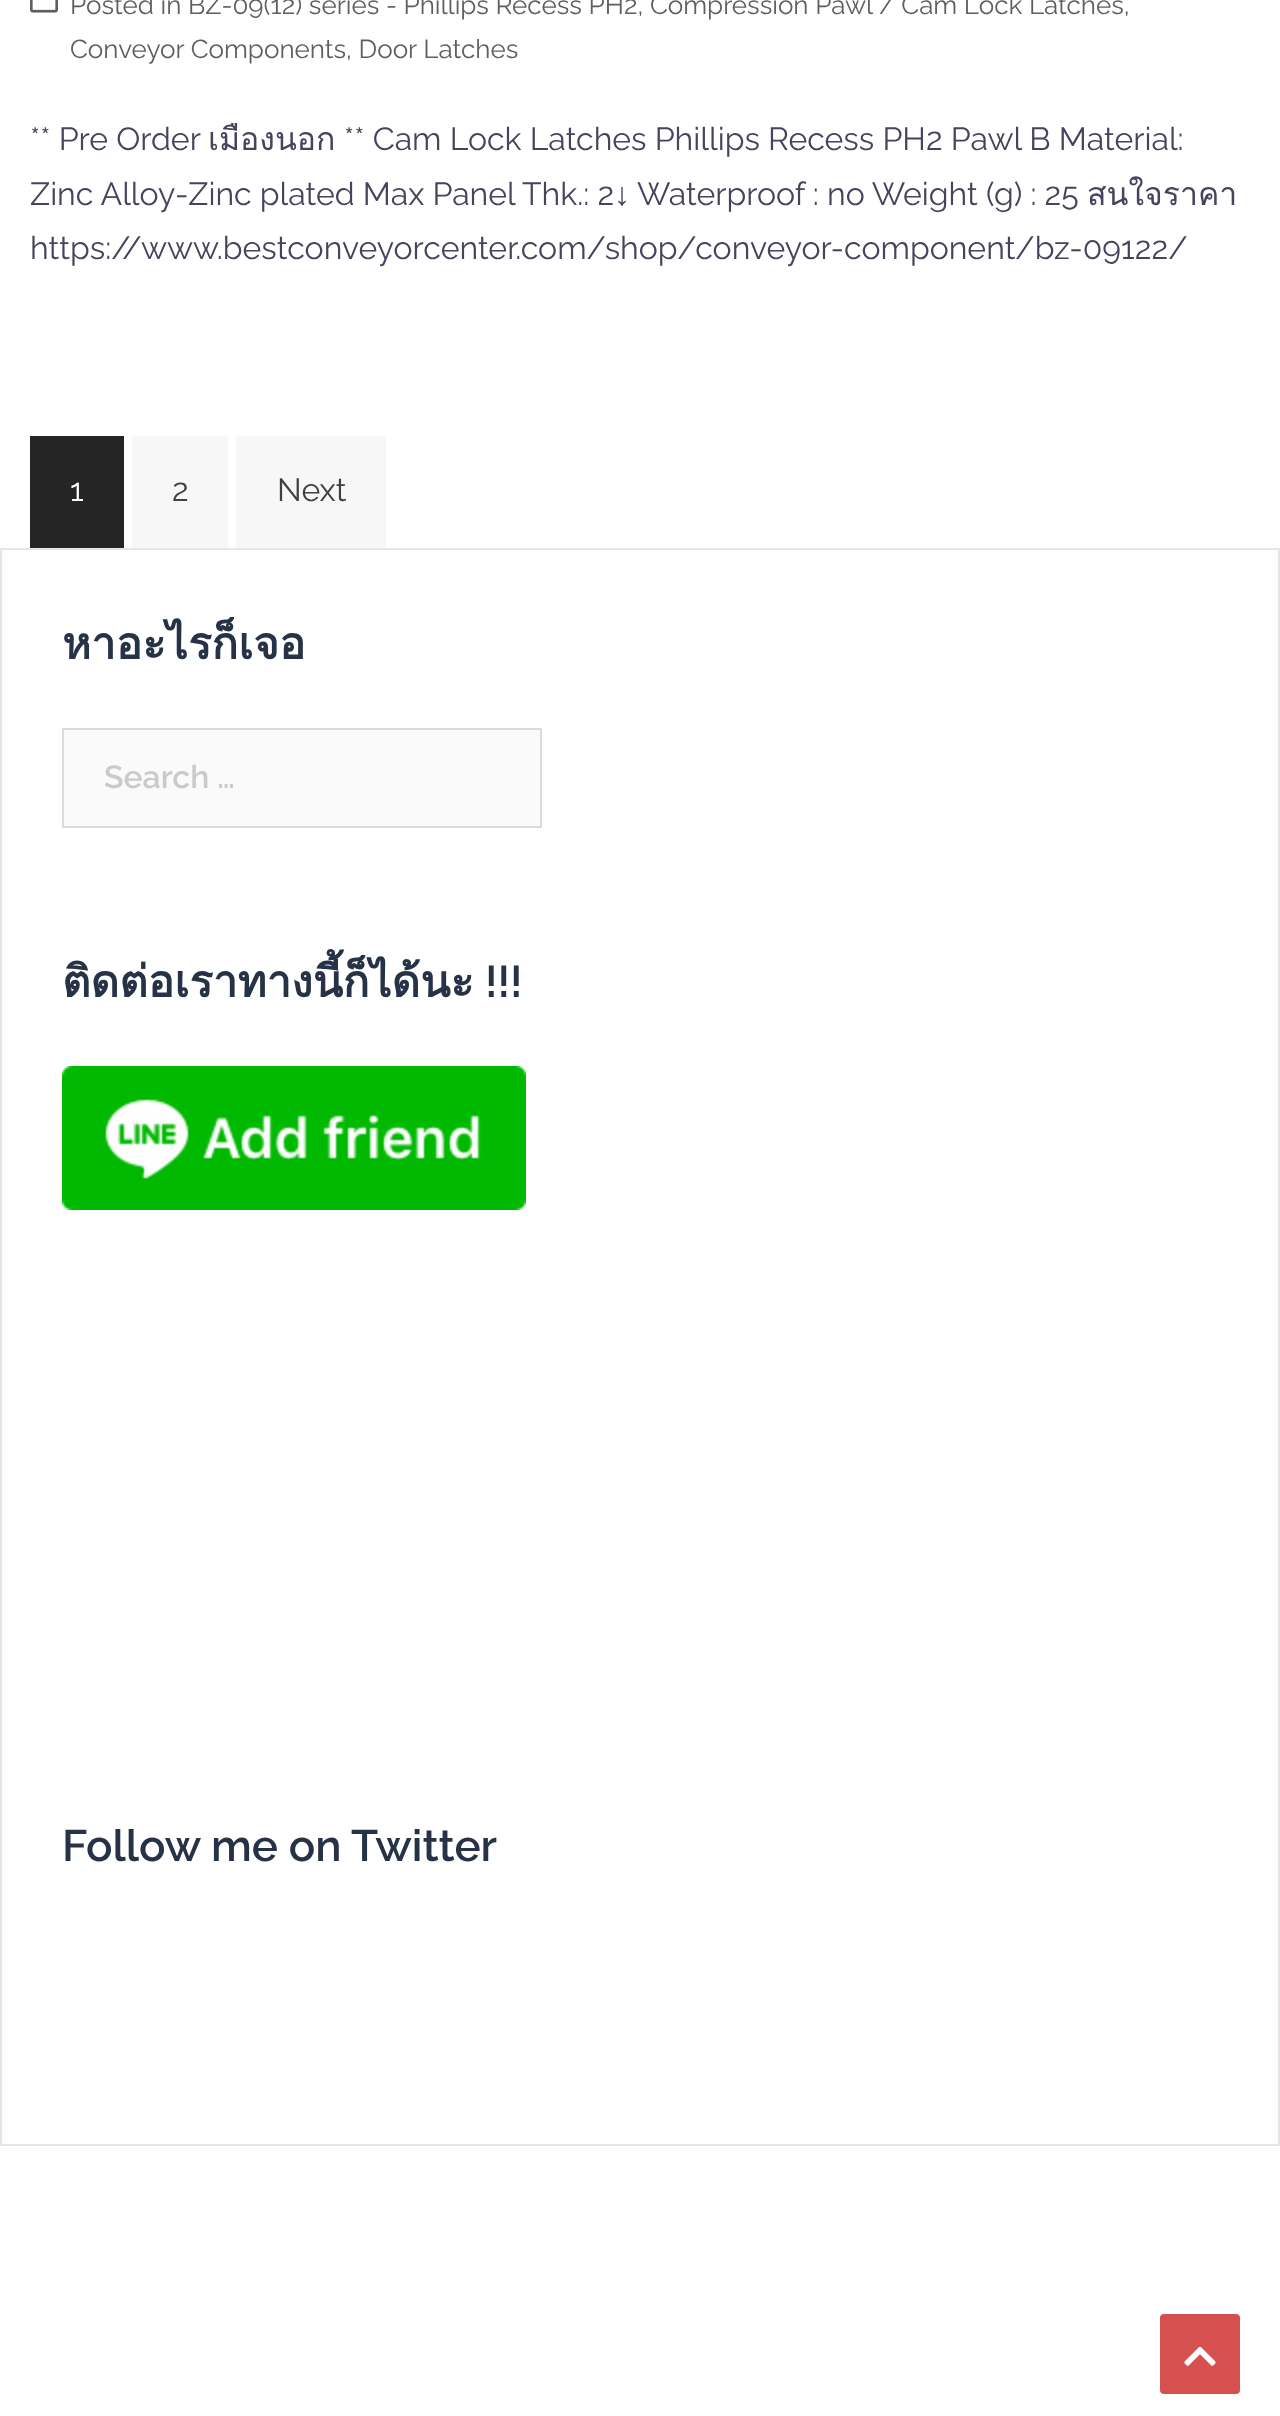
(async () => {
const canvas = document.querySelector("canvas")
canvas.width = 1280
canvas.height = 2416
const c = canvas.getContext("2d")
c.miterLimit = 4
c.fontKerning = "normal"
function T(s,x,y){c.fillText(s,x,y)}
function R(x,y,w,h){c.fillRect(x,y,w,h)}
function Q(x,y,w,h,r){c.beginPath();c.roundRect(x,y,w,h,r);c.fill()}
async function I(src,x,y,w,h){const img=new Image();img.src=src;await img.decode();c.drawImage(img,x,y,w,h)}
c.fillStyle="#fff"
R(0,0,1280,2416)
await I("1.png",30,0,28,13)
c.font="26px Raleway"
c.fillStyle="#5e5e5e"
T("Posted in BZ-09(12) series - Phillips Recess PH2, Compression Pawl / Cam Lock Latches,",70,14)
T("Conveyor Components, Door Latches",70,58)
c.font="32px Raleway"
c.fillStyle="#47425d"
T("** Pre Order",30,150)
c.font="32px Loma"
T("เมืองนอก",208,150)
c.font="32px Raleway"
T("** Cam Lock Latches Phillips Recess PH2 Pawl B Material:",344,150)
T("Zinc Alloy-Zinc plated Max Panel Thk.: 2",30,205)
c.font="32px Liberation Serif"
T("↓",614,205)
c.font="32px Raleway"
T("Waterproof : no Weight (g) : 25",637,205)
c.font="32px Loma"
T("สนใจราคา",1087,205)
c.font="32px Raleway"
T("https://www.bestconveyorcenter.com/shop/conveyor-component/bz-09122/",30,259)
c.fillStyle="#252525"
R(30,436,94,112)
c.fillStyle="#fff"
T("1",70,501)
c.fillStyle="#f7f7f7"
R(132,436,96,112)
c.fillStyle="#443f3f"
T("2",172,501)
c.fillStyle="#f7f7f7"
R(236,436,150,112)
c.fillStyle="#443f3f"
T("Next",277,501)
c.strokeStyle="#e6e6e6"
c.lineWidth=2
c.strokeRect(1,549,1278,1596)
c.font="bold 44px Loma"
c.fillStyle="#263246"
T("หาอะไรก็เจอ",62,659)
c.fillStyle="#fafafa"
c.beginPath()
c.rect(63,729,478,98)
c.fill()
c.strokeStyle="#dbdbdb"
c.stroke()
c.font="600 32px Raleway"
c.fillStyle="#cacaca"
T("Search …",104,788)
c.font="bold 44px Loma"
c.fillStyle="#263246"
T("ติดต่อเราทางนี้ก็ได้นะ",62,997)
c.font="600 44px Raleway"
T("!!!",485,997)
await I("2.png",62,1066,464,144)
T("Follow me on Twitter",62,1861)
c.fillStyle="#d65050"
Q(1160,2314,80,80,4)
await I("3.png",1184,2346,32,20)
})()
